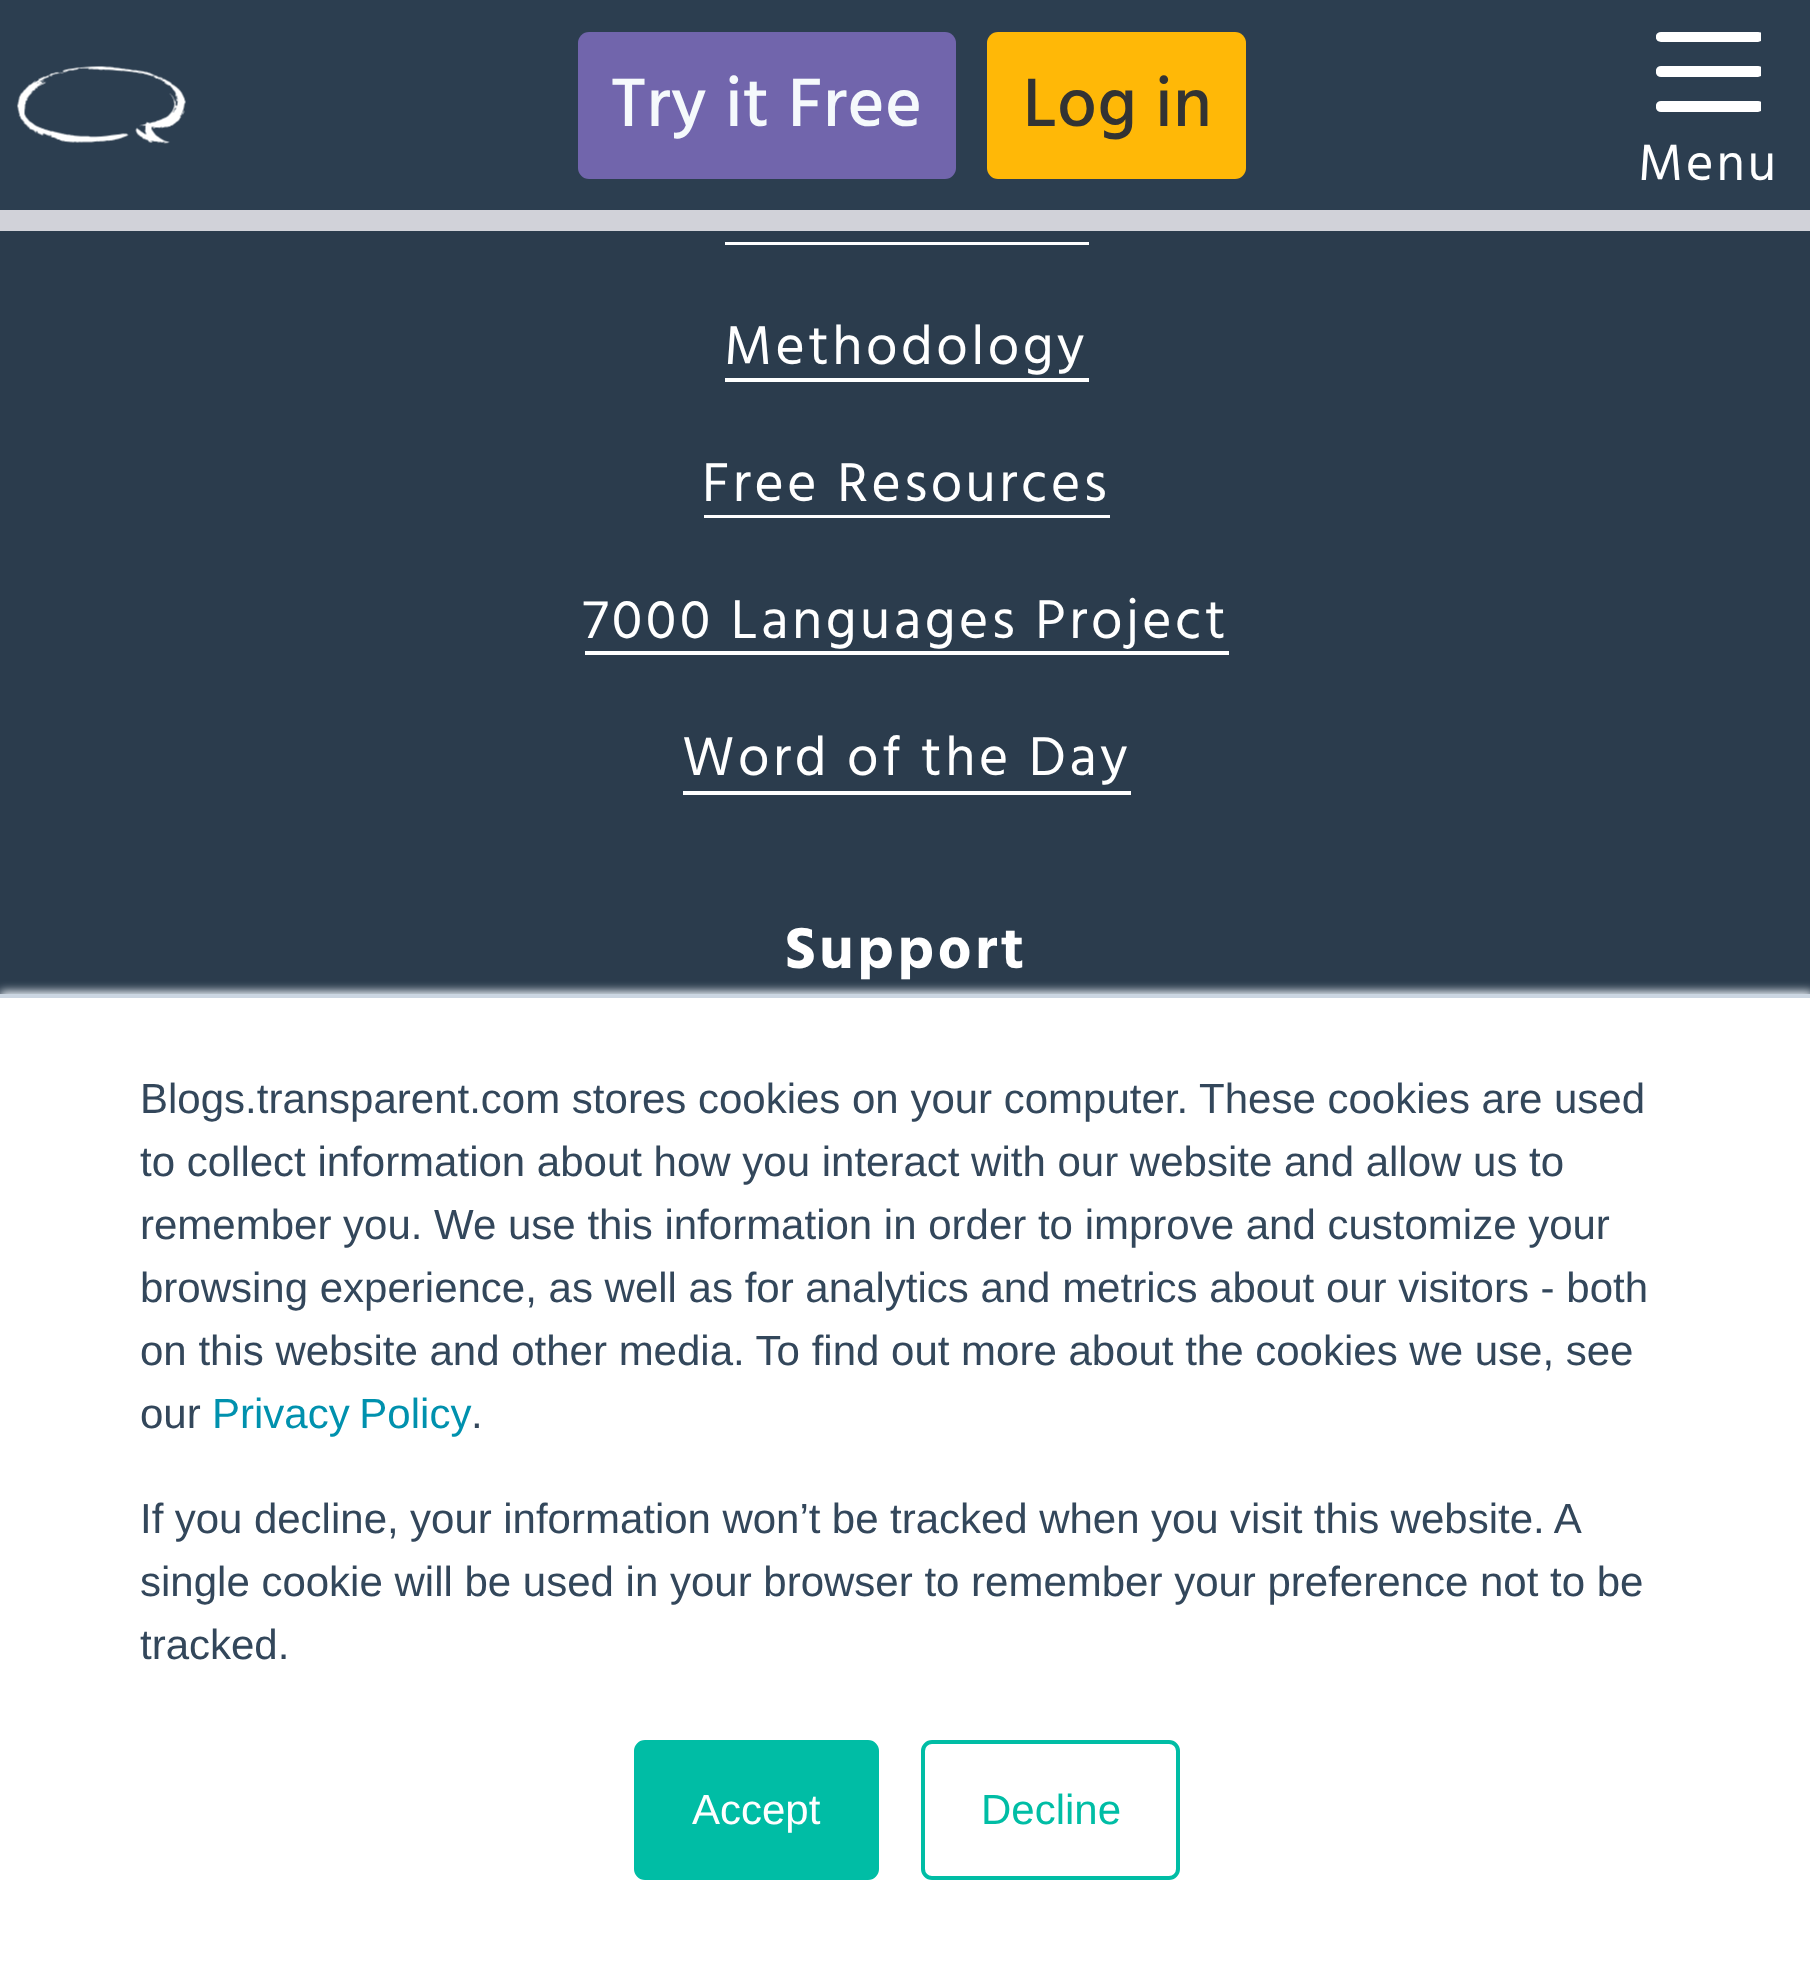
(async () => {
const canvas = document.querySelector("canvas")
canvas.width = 1810
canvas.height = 1970
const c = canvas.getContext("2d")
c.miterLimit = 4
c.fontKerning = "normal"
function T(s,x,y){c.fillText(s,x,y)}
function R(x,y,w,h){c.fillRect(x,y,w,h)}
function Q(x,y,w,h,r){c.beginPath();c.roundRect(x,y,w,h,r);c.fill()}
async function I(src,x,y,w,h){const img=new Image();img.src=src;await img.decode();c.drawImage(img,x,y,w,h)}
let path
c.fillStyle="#2b3c4d"
R(0,0,1810,1970)
c.fillStyle="#2c3e50"
R(0,0,1810,210)
c.fillStyle="#d1d2d9"
R(0,210,1810,21)
await I("1.png",17,66,169,78)
c.fillStyle="#7165ac"
Q(578,32,378,147,11)
c.letterSpacing="0.75px"
c.font="500 70px Hind"
c.fillStyle="#f5f9fc"
T("Try it Free",611,126)
c.fillStyle="#ffb807"
Q(987,32,259,147,11)
c.fillStyle="#333"
T("Log in",1023,126)
c.save()
c.beginPath()
c.rect(1656,32,105,80)
c.clip()
c.fillStyle="#fff"
path = new Path2D("M1661 32c-7 0-7 10 0 10h97l3-1c5-3 3-9-3-9zm0 34c-7 0-7 11 0 11h97l3-1c5-3 3-10-3-10zm0 35c-7 0-7 11 0 11h97l3-1c5-3 3-10-3-10z")
c.fill(path)
c.restore()
c.letterSpacing="3px"
c.font="52.5px Hind"
c.fillStyle="#fff"
T("Menu",1638,180)
R(725,242,364,3)
R(725,378,364,4)
c.letterSpacing="3.5px"
c.font="56px Hind"
T("Methodology",724,364)
R(704,515,406,3)
T("Free Resources",702,501)
R(585,651,644,4)
T("7000 Languages Project",583,638)
R(683,791,448,4)
T("Word of the Day",682,775)
c.letterSpacing="3.75px"
c.font="bold 59.5px Hind"
T("Support",785,968)
c.fillStyle="#eaf0f6"
c.filter="blur(5px)"
c.beginPath()
c.rect(0,991,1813,976)
c.fill()
c.filter="none"
c.fillStyle="#fff"
R(0,998,1810,972)
c.fillStyle="#cbd6e2"
R(0,994,1810,4)
c.letterSpacing="0px"
c.font="42px Liberation Sans"
c.fillStyle="#33475b"
T("Blogs.transparent.com stores cookies on your computer. These cookies are used",140,1113)
T("to collect information about how you interact with our website and allow us to",140,1176)
T("remember you. We use this information in order to improve and customize your",140,1239)
T("browsing experience, as well as for analytics and metrics about our visitors - both",140,1302)
T("on this website and other media. To find out more about the cookies we use, see",140,1365)
T("our",140,1428)
c.wordSpacing="-2px"
c.fillStyle="#0091ae"
T("Privacy Policy",212,1428)
c.wordSpacing="0px"
c.fillStyle="#33475b"
T(".",471,1428)
c.wordSpacing="-0.25px"
T("If you decline, your information won’t be tracked when you visit this website. A",140,1533)
c.wordSpacing="0px"
T("single cookie will be used in your browser to remember your preference not to be",140,1596)
T("tracked.",140,1659)
c.fillStyle="#00bda5"
c.beginPath()
c.roundRect(636,1742,241,136,9)
c.fill()
c.strokeStyle="#00bda5"
c.lineWidth=4
c.stroke()
c.fillStyle="#fff"
T("Accept",692,1824)
c.beginPath()
c.roundRect(923,1742,255,136,9)
c.stroke()
c.fillStyle="#00bda5"
T("Decline",981,1824)
})()
